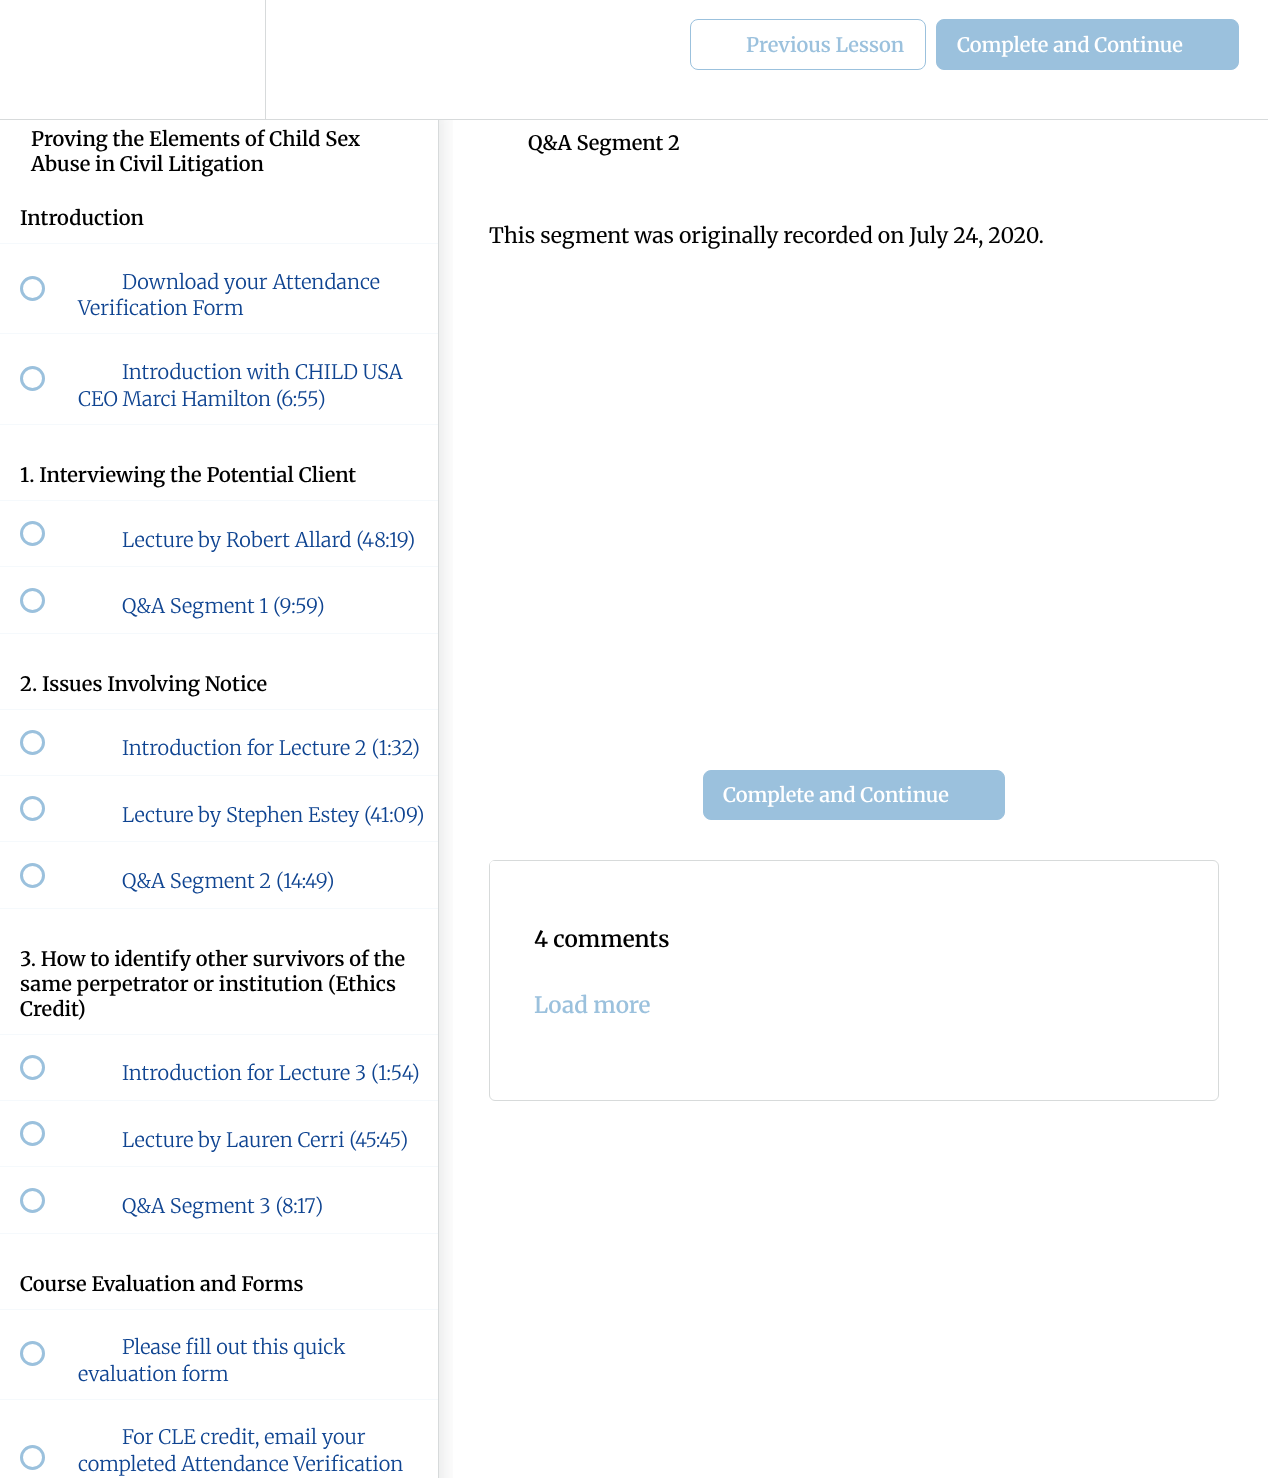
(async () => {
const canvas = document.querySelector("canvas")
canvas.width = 1268
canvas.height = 1478
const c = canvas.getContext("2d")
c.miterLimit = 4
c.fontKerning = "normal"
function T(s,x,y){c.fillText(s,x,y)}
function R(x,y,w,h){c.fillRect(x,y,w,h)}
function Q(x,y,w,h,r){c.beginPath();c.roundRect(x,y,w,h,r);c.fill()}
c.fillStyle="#fff"
R(0,0,1268,1478)
c.save()
c.beginPath()
c.rect(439,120,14,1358)
c.clip()
c.fillStyle="#20272d26"
c.filter="blur(12.5px)"
c.beginPath()
c.rect(0,103,439,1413)
c.fill()
c.filter="none"
c.restore()
R(0,85,456,34)
c.fillStyle="#d7dadb"
R(0,119,1268,1)
R(265,0,1,119)
c.beginPath()
c.roundRect(690.5,19.5,235,50,7.5)
c.strokeStyle="#9bc1dd"
c.stroke()
c.font="600 20px Merriweather"
c.fillStyle="#9bc1dd"
T("Previous Lesson",746,52)
c.beginPath()
c.roundRect(936.5,19.5,302,50,7.5)
c.fill()
c.stroke()
c.fillStyle="#fff"
T("Complete and Continue",957,52)
c.fillStyle="#d7dadb"
R(438,120,1,1358)
c.fillStyle="#000"
T("Proving the Elements of Child Sex",31,146)
T("Abuse in Civil Litigation",31,171)
c.fillStyle="#f5f9fc"
R(0,243,438,1)
c.fillStyle="#000"
T("Introduction",20,225)
c.fillStyle="#f5f9fc"
R(0,333,438,1)
c.beginPath()
c.arc(32.5,288.5,11,0,7)
c.lineWidth=3
c.stroke()
c.font="300 20px Merriweather"
c.fillStyle="#0f4491"
T("Download your Attendance",122,289)
T("Verification Form",78,315)
c.fillStyle="#f5f9fc"
R(0,424,438,1)
c.beginPath()
c.arc(32.5,378.5,11,0,7)
c.stroke()
c.fillStyle="#0f4491"
T("Introduction with CHILD USA",122,379)
T("CEO Marci Hamilton (6:55)",78,406)
c.fillStyle="#f5f9fc"
R(0,500,438,1)
c.font="600 20px Merriweather"
c.fillStyle="#000"
T("1. Interviewing the Potential Client",20,482)
c.fillStyle="#f5f9fc"
R(0,566,438,1)
c.beginPath()
c.arc(32.5,533.5,11,0,7)
c.stroke()
c.font="300 20px Merriweather"
c.fillStyle="#0f4491"
T("Lecture by Robert Allard (48:19)",122,547)
c.fillStyle="#f5f9fc"
R(0,633,438,1)
c.beginPath()
c.arc(32.5,600.5,11,0,7)
c.stroke()
c.fillStyle="#0f4491"
T("Q&A Segment 1 (9:59)",122,613)
c.fillStyle="#f5f9fc"
R(0,709,438,1)
c.font="600 20px Merriweather"
c.fillStyle="#000"
T("2. Issues Involving Notice",20,691)
c.fillStyle="#f5f9fc"
R(0,775,438,1)
c.beginPath()
c.arc(32.5,742.5,11,0,7)
c.stroke()
c.font="300 20px Merriweather"
c.fillStyle="#0f4491"
T("Introduction for Lecture 2 (1:32)",122,755)
c.fillStyle="#f5f9fc"
R(0,841,438,1)
c.beginPath()
c.arc(32.5,808.5,11,0,7)
c.stroke()
c.fillStyle="#0f4491"
T("Lecture by Stephen Estey (41:09)",122,822)
c.fillStyle="#f5f9fc"
R(0,908,438,1)
c.beginPath()
c.arc(32.5,875.5,11,0,7)
c.stroke()
c.fillStyle="#0f4491"
T("Q&A Segment 2 (14:49)",122,888)
c.fillStyle="#f5f9fc"
R(0,1034,438,1)
c.font="600 20px Merriweather"
c.fillStyle="#000"
T("3. How to identify other survivors of the",20,966)
T("same perpetrator or institution (Ethics",20,991)
T("Credit)",20,1016)
c.fillStyle="#f5f9fc"
R(0,1100,438,1)
c.beginPath()
c.arc(32.5,1067.5,11,0,7)
c.stroke()
c.font="300 20px Merriweather"
c.fillStyle="#0f4491"
T("Introduction for Lecture 3 (1:54)",122,1080)
c.fillStyle="#f5f9fc"
R(0,1166,438,1)
c.beginPath()
c.arc(32.5,1133.5,11,0,7)
c.stroke()
c.fillStyle="#0f4491"
T("Lecture by Lauren Cerri (45:45)",122,1147)
c.fillStyle="#f5f9fc"
R(0,1233,438,1)
c.beginPath()
c.arc(32.5,1200.5,11,0,7)
c.stroke()
c.fillStyle="#0f4491"
T("Q&A Segment 3 (8:17)",122,1213)
c.fillStyle="#f5f9fc"
R(0,1309,438,1)
c.font="600 20px Merriweather"
c.fillStyle="#000"
T("Course Evaluation and Forms",20,1291)
c.fillStyle="#f5f9fc"
R(0,1399,438,1)
c.beginPath()
c.arc(32.5,1353.5,11,0,7)
c.stroke()
c.font="300 20px Merriweather"
c.fillStyle="#0f4491"
T("Please fill out this quick",122,1354)
T("evaluation form",78,1381)
c.beginPath()
c.arc(32.5,1457.5,11,0,7)
c.stroke()
T("For CLE credit, email your",122,1444)
T("completed Attendance Verification",78,1471)
c.font="600 20px Merriweather"
c.fillStyle="#000"
T("Q&A Segment 2",528,150)
c.font="21.25px Merriweather"
T("This segment was originally recorded on July 24, 2020.",489,243)
c.fillStyle="#9bc1dd"
c.beginPath()
c.roundRect(703.5,770.5,301,49,7.5)
c.fill()
c.lineWidth=1
c.stroke()
c.font="600 20px Merriweather"
c.fillStyle="#fff"
T("Complete and Continue",723,802)
c.beginPath()
c.roundRect(489.5,860.5,729,240,5.5)
c.strokeStyle="#d7dada"
c.stroke()
Q(490,861,139,34,4)
c.font="600 22.5px Merriweather"
c.fillStyle="#000"
T("4 comments",534,947)
c.fillStyle="#9bc1dd"
T("Load more",534,1013)
})()
